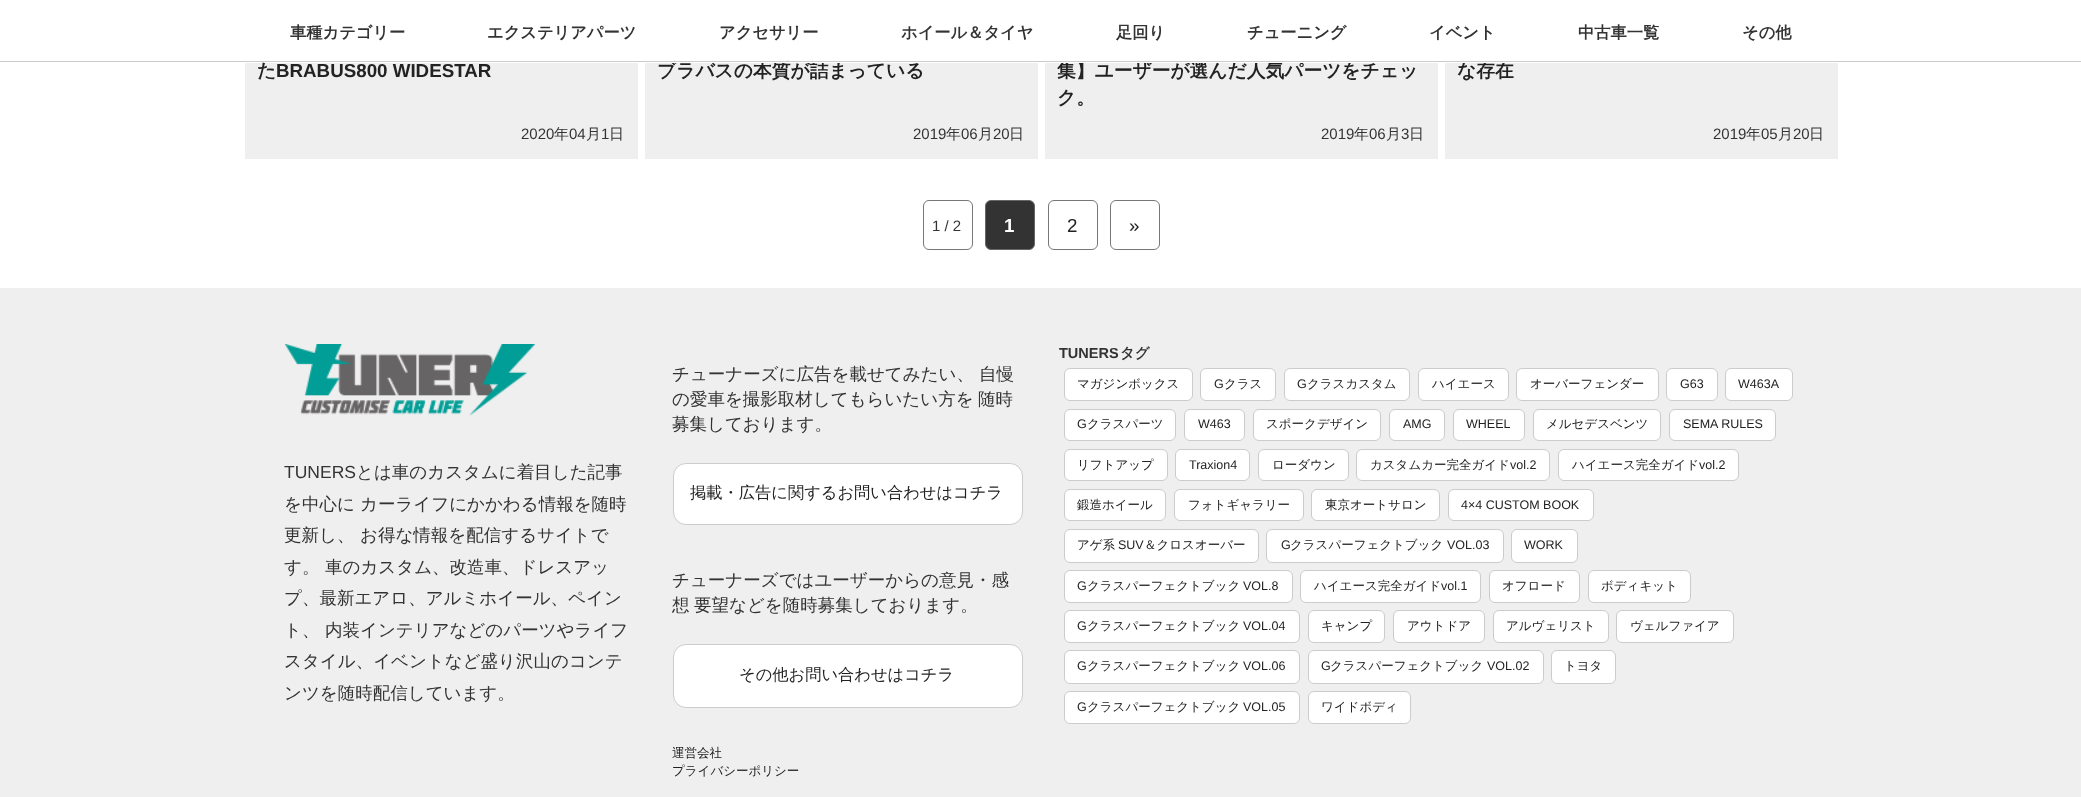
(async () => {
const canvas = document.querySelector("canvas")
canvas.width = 2081
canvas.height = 797
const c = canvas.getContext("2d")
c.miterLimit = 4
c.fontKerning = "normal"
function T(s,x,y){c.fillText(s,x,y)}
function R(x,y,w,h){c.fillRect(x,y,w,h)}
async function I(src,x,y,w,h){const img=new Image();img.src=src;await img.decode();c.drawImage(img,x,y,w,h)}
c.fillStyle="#fff"
R(0,0,2081,797)
c.fillStyle="#efefef"
R(645,63,393,96)
c.font="bold 18.75px WenQuanYi Zen Hei"
c.fillStyle="#222"
T("ブラバスの本質が詰まっている",657,77)
c.fillStyle="#efefef"
R(1045,63,393,96)
c.fillStyle="#222"
T("集】ユーザーが選んだ人気パーツをチェッ",1057,77)
c.fillStyle="#efefef"
R(1445,63,393,96)
c.fillStyle="#222"
T("な存在",1457,77)
c.fillStyle="#fff"
R(672,61,833,2)
c.fillStyle="#ccc"
R(0,61,2081,1)
c.font="bold 16.25px WenQuanYi Zen Hei"
c.fillStyle="#333"
T("車種カテゴリー",290,38)
T("エクステリアパーツ",487,38)
T("アクセサリー",719,38)
T("ホイール＆タイヤ",901,38)
T("足回り",1116,38)
T("チューニング",1247,38)
T("イベント",1429,38)
T("中古車一覧",1578,38)
T("その他",1742,38)
c.fillStyle="#efefef"
R(245,63,393,96)
c.font="bold 18.75px WenQuanYi Zen Hei"
c.fillStyle="#222"
T("た",257,77)
c.font="bold 18.75px Liberation Sans"
T("BRABUS800 WIDESTAR",276,77)
c.font="15px Liberation Sans"
c.fillStyle="#333"
T("2020",521,139)
c.font="500 15px WenQuanYi Zen Hei"
T("年",554,139)
c.font="15px Liberation Sans"
T("04",569,139)
c.font="500 15px WenQuanYi Zen Hei"
T("月",586,139)
c.font="15px Liberation Sans"
T("1",601,139)
c.font="500 15px WenQuanYi Zen Hei"
T("日",609,139)
c.font="15px Liberation Sans"
T("2019",913,139)
c.font="500 15px WenQuanYi Zen Hei"
T("年",946,139)
c.font="15px Liberation Sans"
T("06",961,139)
c.font="500 15px WenQuanYi Zen Hei"
T("月",978,139)
c.font="15px Liberation Sans"
T("20",993,139)
c.font="500 15px WenQuanYi Zen Hei"
T("日",1009,139)
c.font="bold 18.75px WenQuanYi Zen Hei"
c.fillStyle="#222"
T("ク。",1057,104)
c.font="15px Liberation Sans"
c.fillStyle="#333"
T("2019",1321,139)
c.font="500 15px WenQuanYi Zen Hei"
T("年",1354,139)
c.font="15px Liberation Sans"
T("06",1369,139)
c.font="500 15px WenQuanYi Zen Hei"
T("月",1386,139)
c.font="15px Liberation Sans"
T("3",1401,139)
c.font="500 15px WenQuanYi Zen Hei"
T("日",1409,139)
c.font="15px Liberation Sans"
T("2019",1713,139)
c.font="500 15px WenQuanYi Zen Hei"
T("年",1746,139)
c.font="15px Liberation Sans"
T("05",1761,139)
c.font="500 15px WenQuanYi Zen Hei"
T("月",1778,139)
c.font="15px Liberation Sans"
T("20",1793,139)
c.font="500 15px WenQuanYi Zen Hei"
T("日",1809,139)
c.beginPath()
c.roundRect(923.5,200.5,49,49,5.5)
c.strokeStyle="#777"
c.stroke()
c.font="15px Liberation Sans"
T("1 / 2",932,231)
c.beginPath()
c.roundRect(985.5,200.5,49,49,5.5)
c.fill()
c.strokeStyle="#666"
c.stroke()
c.font="bold 18.75px Liberation Sans"
c.fillStyle="#fff"
T("1",1004,232)
c.beginPath()
c.roundRect(1048.5,200.5,49,49,5.5)
c.strokeStyle="#777"
c.stroke()
c.font="18.75px Liberation Sans"
c.fillStyle="#222"
T("2",1067,232)
c.beginPath()
c.roundRect(1110.5,200.5,49,49,5.5)
c.stroke()
T("»",1129,232)
c.fillStyle="#efefef"
R(0,288,2081,509)
await I("1.png",285,344,250,72)
c.font="17.5px Liberation Sans"
c.fillStyle="#333"
T("TUNERS",284,478)
c.font="500 17.5px WenQuanYi Zen Hei"
T("とは車のカスタムに着目した記事",356,478)
T("を中心に",284,510)
T("カーライフにかかわる情報を随時",360,510)
T("更新し、",284,541)
T("お得な情報を配信するサイトで",360,541)
T("す。",284,573)
T("車のカスタム、改造車、ドレスアッ",325,573)
T("プ、最新エアロ、アルミホイール、ペイン",284,604)
T("ト、",284,636)
T("内装インテリアなどのパーツやライフ",325,636)
T("スタイル、イベントなど盛り沢山のコンテ",284,667)
T("ンツを随時配信しています。",284,699)
T("チューナーズに広告を載せてみたい、",672,380)
T("自慢",979,380)
T("の愛車を撮影取材してもらいたい方を",672,405)
T("随時",978,405)
T("募集しております。",672,430)
c.fillStyle="#fff"
c.beginPath()
c.roundRect(673.5,463.5,349,61,12.5)
c.fill()
c.strokeStyle="#ccc"
c.stroke()
c.font="500 16.25px WenQuanYi Zen Hei"
c.fillStyle="#222"
T("掲載・広告に関するお問い合わせはコチラ",690,498)
c.font="500 17.5px WenQuanYi Zen Hei"
c.fillStyle="#333"
T("チューナーズではユーザーからの意見・感",672,586)
T("想",672,611)
T("要望などを随時募集しております。",694,611)
c.fillStyle="#fff"
c.beginPath()
c.roundRect(673.5,644.5,349,63,12.5)
c.fill()
c.stroke()
c.font="500 16.25px WenQuanYi Zen Hei"
c.fillStyle="#222"
T("その他お問い合わせはコチラ",739,680)
c.font="500 12.5px WenQuanYi Zen Hei"
T("運営会社",672,757)
T("プライバシーポリシー",672,775)
c.font="bold 14.5px Liberation Sans"
c.fillStyle="#333"
T("TUNERS",1059,358)
c.font="bold 14.5px WenQuanYi Zen Hei"
T("タグ",1120,358)
c.fillStyle="#fff"
c.beginPath()
c.roundRect(1064.5,368.5,128,32,5.5)
c.fill()
c.stroke()
c.font="500 12.5px WenQuanYi Zen Hei"
c.fillStyle="#222"
T("マガジンボックス",1077,388)
c.fillStyle="#fff"
c.beginPath()
c.roundRect(1200.5,368.5,75,32,5.5)
c.fill()
c.stroke()
c.font="12.5px Liberation Sans"
c.fillStyle="#222"
T("G",1214,388)
c.font="500 12.5px WenQuanYi Zen Hei"
T("クラス",1224,388)
c.fillStyle="#fff"
c.beginPath()
c.roundRect(1284.5,368.5,125,32,5.5)
c.fill()
c.stroke()
c.font="12.5px Liberation Sans"
c.fillStyle="#222"
T("G",1297,388)
c.font="500 12.5px WenQuanYi Zen Hei"
T("クラスカスタム",1307,388)
c.fillStyle="#fff"
c.beginPath()
c.roundRect(1418.5,368.5,90,32,5.5)
c.fill()
c.stroke()
c.fillStyle="#222"
T("ハイエース",1432,388)
c.fillStyle="#fff"
c.beginPath()
c.roundRect(1516.5,368.5,142,32,5.5)
c.fill()
c.stroke()
c.fillStyle="#222"
T("オーバーフェンダー",1530,388)
c.fillStyle="#fff"
c.beginPath()
c.roundRect(1666.5,368.5,51,32,5.5)
c.fill()
c.stroke()
c.font="12.5px Liberation Sans"
c.fillStyle="#222"
T("G63",1680,388)
c.fillStyle="#fff"
c.beginPath()
c.roundRect(1725.5,368.5,67,32,5.5)
c.fill()
c.stroke()
c.fillStyle="#222"
T("W463A",1738,388)
c.fillStyle="#fff"
c.beginPath()
c.roundRect(1064.5,409.5,111,31,5.5)
c.fill()
c.stroke()
c.fillStyle="#222"
T("G",1077,428)
c.font="500 12.5px WenQuanYi Zen Hei"
T("クラスパーツ",1087,428)
c.fillStyle="#fff"
c.beginPath()
c.roundRect(1184.5,409.5,60,31,5.5)
c.fill()
c.stroke()
c.font="12.5px Liberation Sans"
c.fillStyle="#222"
T("W463",1198,428)
c.fillStyle="#fff"
c.beginPath()
c.roundRect(1253.5,409.5,127,31,5.5)
c.fill()
c.stroke()
c.font="500 12.5px WenQuanYi Zen Hei"
c.fillStyle="#222"
T("スポークデザイン",1266,428)
c.fillStyle="#fff"
c.beginPath()
c.roundRect(1389.5,409.5,55,31,5.5)
c.fill()
c.stroke()
c.font="12.5px Liberation Sans"
c.fillStyle="#222"
T("AMG",1403,428)
c.fillStyle="#fff"
c.beginPath()
c.roundRect(1453.5,409.5,71,31,5.5)
c.fill()
c.stroke()
c.fillStyle="#222"
T("WHEEL",1466,428)
c.fillStyle="#fff"
c.beginPath()
c.roundRect(1533.5,409.5,127,31,5.5)
c.fill()
c.stroke()
c.font="500 12.5px WenQuanYi Zen Hei"
c.fillStyle="#222"
T("メルセデスベンツ",1546,428)
c.fillStyle="#fff"
c.beginPath()
c.roundRect(1669.5,409.5,106,31,5.5)
c.fill()
c.stroke()
c.font="12.5px Liberation Sans"
c.fillStyle="#222"
T("SEMA RULES",1683,428)
c.fillStyle="#fff"
c.beginPath()
c.roundRect(1064.5,449.5,103,31,5.5)
c.fill()
c.stroke()
c.font="500 12.5px WenQuanYi Zen Hei"
c.fillStyle="#222"
T("リフトアップ",1077,469)
c.fillStyle="#fff"
c.beginPath()
c.roundRect(1175.5,449.5,74,31,5.5)
c.fill()
c.stroke()
c.font="12.5px Liberation Sans"
c.fillStyle="#222"
T("Traxion4",1189,469)
c.fillStyle="#fff"
c.beginPath()
c.roundRect(1258.5,449.5,90,31,5.5)
c.fill()
c.stroke()
c.font="500 12.5px WenQuanYi Zen Hei"
c.fillStyle="#222"
T("ローダウン",1272,469)
c.fillStyle="#fff"
c.beginPath()
c.roundRect(1356.5,449.5,193,31,5.5)
c.fill()
c.stroke()
c.fillStyle="#222"
T("カスタムカー完全ガイド",1370,469)
c.font="12.5px Liberation Sans"
T("vol.2",1510,469)
c.fillStyle="#fff"
c.beginPath()
c.roundRect(1558.5,449.5,180,31,5.5)
c.fill()
c.stroke()
c.font="500 12.5px WenQuanYi Zen Hei"
c.fillStyle="#222"
T("ハイエース完全ガイド",1572,469)
c.font="12.5px Liberation Sans"
T("vol.2",1699,469)
c.fillStyle="#fff"
c.beginPath()
c.roundRect(1064.5,489.5,101,31,5.5)
c.fill()
c.stroke()
c.font="500 12.5px WenQuanYi Zen Hei"
c.fillStyle="#222"
T("鍛造ホイール",1077,509)
c.fillStyle="#fff"
c.beginPath()
c.roundRect(1174.5,489.5,129,31,5.5)
c.fill()
c.stroke()
c.fillStyle="#222"
T("フォトギャラリー",1188,509)
c.fillStyle="#fff"
c.beginPath()
c.roundRect(1311.5,489.5,128,31,5.5)
c.fill()
c.stroke()
c.fillStyle="#222"
T("東京オートサロン",1325,509)
c.fillStyle="#fff"
c.beginPath()
c.roundRect(1448.5,489.5,145,31,5.5)
c.fill()
c.stroke()
c.font="12.5px Liberation Sans"
c.fillStyle="#222"
T("4×4 CUSTOM BOOK",1461,509)
c.fillStyle="#fff"
c.beginPath()
c.roundRect(1064.5,529.5,194,33,5.5)
c.fill()
c.stroke()
c.font="500 12.5px WenQuanYi Zen Hei"
c.fillStyle="#222"
T("アゲ系",1077,549)
c.font="12.5px Liberation Sans"
T("SUV",1118,549)
c.font="500 12.5px WenQuanYi Zen Hei"
T("＆クロスオーバー",1144,549)
c.fillStyle="#fff"
c.beginPath()
c.roundRect(1266.5,529.5,237,33,5.5)
c.fill()
c.stroke()
c.font="12.5px Liberation Sans"
c.fillStyle="#222"
T("G",1281,549)
c.font="500 12.5px WenQuanYi Zen Hei"
T("クラスパーフェクトブック",1290,549)
c.font="12.5px Liberation Sans"
T("VOL.03",1447,549)
c.fillStyle="#fff"
c.beginPath()
c.roundRect(1511.5,529.5,66,33,5.5)
c.fill()
c.stroke()
c.fillStyle="#222"
T("WORK",1524,549)
c.fillStyle="#fff"
c.beginPath()
c.roundRect(1064.5,570.5,228,32,5.5)
c.fill()
c.stroke()
c.fillStyle="#222"
T("G",1077,590)
c.font="500 12.5px WenQuanYi Zen Hei"
T("クラスパーフェクトブック",1087,590)
c.font="12.5px Liberation Sans"
T("VOL.8",1243,590)
c.fillStyle="#fff"
c.beginPath()
c.roundRect(1300.5,570.5,180,32,5.5)
c.fill()
c.stroke()
c.font="500 12.5px WenQuanYi Zen Hei"
c.fillStyle="#222"
T("ハイエース完全ガイド",1314,590)
c.font="12.5px Liberation Sans"
T("vol.1",1441,590)
c.fillStyle="#fff"
c.beginPath()
c.roundRect(1489.5,570.5,90,32,5.5)
c.fill()
c.stroke()
c.font="500 12.5px WenQuanYi Zen Hei"
c.fillStyle="#222"
T("オフロード",1502,590)
c.fillStyle="#fff"
c.beginPath()
c.roundRect(1588.5,570.5,102,32,5.5)
c.fill()
c.stroke()
c.fillStyle="#222"
T("ボディキット",1601,590)
c.fillStyle="#fff"
c.beginPath()
c.roundRect(1064.5,610.5,235,32,5.5)
c.fill()
c.stroke()
c.font="12.5px Liberation Sans"
c.fillStyle="#222"
T("G",1077,630)
c.font="500 12.5px WenQuanYi Zen Hei"
T("クラスパーフェクトブック",1087,630)
c.font="12.5px Liberation Sans"
T("VOL.04",1243,630)
c.fillStyle="#fff"
c.beginPath()
c.roundRect(1308.5,610.5,76,32,5.5)
c.fill()
c.stroke()
c.font="500 12.5px WenQuanYi Zen Hei"
c.fillStyle="#222"
T("キャンプ",1321,630)
c.fillStyle="#fff"
c.beginPath()
c.roundRect(1393.5,610.5,91,32,5.5)
c.fill()
c.stroke()
c.fillStyle="#222"
T("アウトドア",1407,630)
c.fillStyle="#fff"
c.beginPath()
c.roundRect(1493.5,610.5,115,32,5.5)
c.fill()
c.stroke()
c.fillStyle="#222"
T("アルヴェリスト",1506,630)
c.fillStyle="#fff"
c.beginPath()
c.roundRect(1616.5,610.5,117,32,5.5)
c.fill()
c.stroke()
c.fillStyle="#222"
T("ヴェルファイア",1630,630)
c.fillStyle="#fff"
c.beginPath()
c.roundRect(1064.5,650.5,235,33,5.5)
c.fill()
c.stroke()
c.font="12.5px Liberation Sans"
c.fillStyle="#222"
T("G",1077,670)
c.font="500 12.5px WenQuanYi Zen Hei"
T("クラスパーフェクトブック",1087,670)
c.font="12.5px Liberation Sans"
T("VOL.06",1243,670)
c.fillStyle="#fff"
c.beginPath()
c.roundRect(1308.5,650.5,235,33,5.5)
c.fill()
c.stroke()
c.fillStyle="#222"
T("G",1321,670)
c.font="500 12.5px WenQuanYi Zen Hei"
T("クラスパーフェクトブック",1330,670)
c.font="12.5px Liberation Sans"
T("VOL.02",1487,670)
c.fillStyle="#fff"
c.beginPath()
c.roundRect(1551.5,650.5,64,33,5.5)
c.fill()
c.stroke()
c.font="500 12.5px WenQuanYi Zen Hei"
c.fillStyle="#222"
T("トヨタ",1564,670)
c.fillStyle="#fff"
c.beginPath()
c.roundRect(1064.5,691.5,235,32,5.5)
c.fill()
c.stroke()
c.font="12.5px Liberation Sans"
c.fillStyle="#222"
T("G",1077,711)
c.font="500 12.5px WenQuanYi Zen Hei"
T("クラスパーフェクトブック",1087,711)
c.font="12.5px Liberation Sans"
T("VOL.05",1243,711)
c.fillStyle="#fff"
c.beginPath()
c.roundRect(1308.5,691.5,102,32,5.5)
c.fill()
c.stroke()
c.font="500 12.5px WenQuanYi Zen Hei"
c.fillStyle="#222"
T("ワイドボディ",1321,711)
})()
